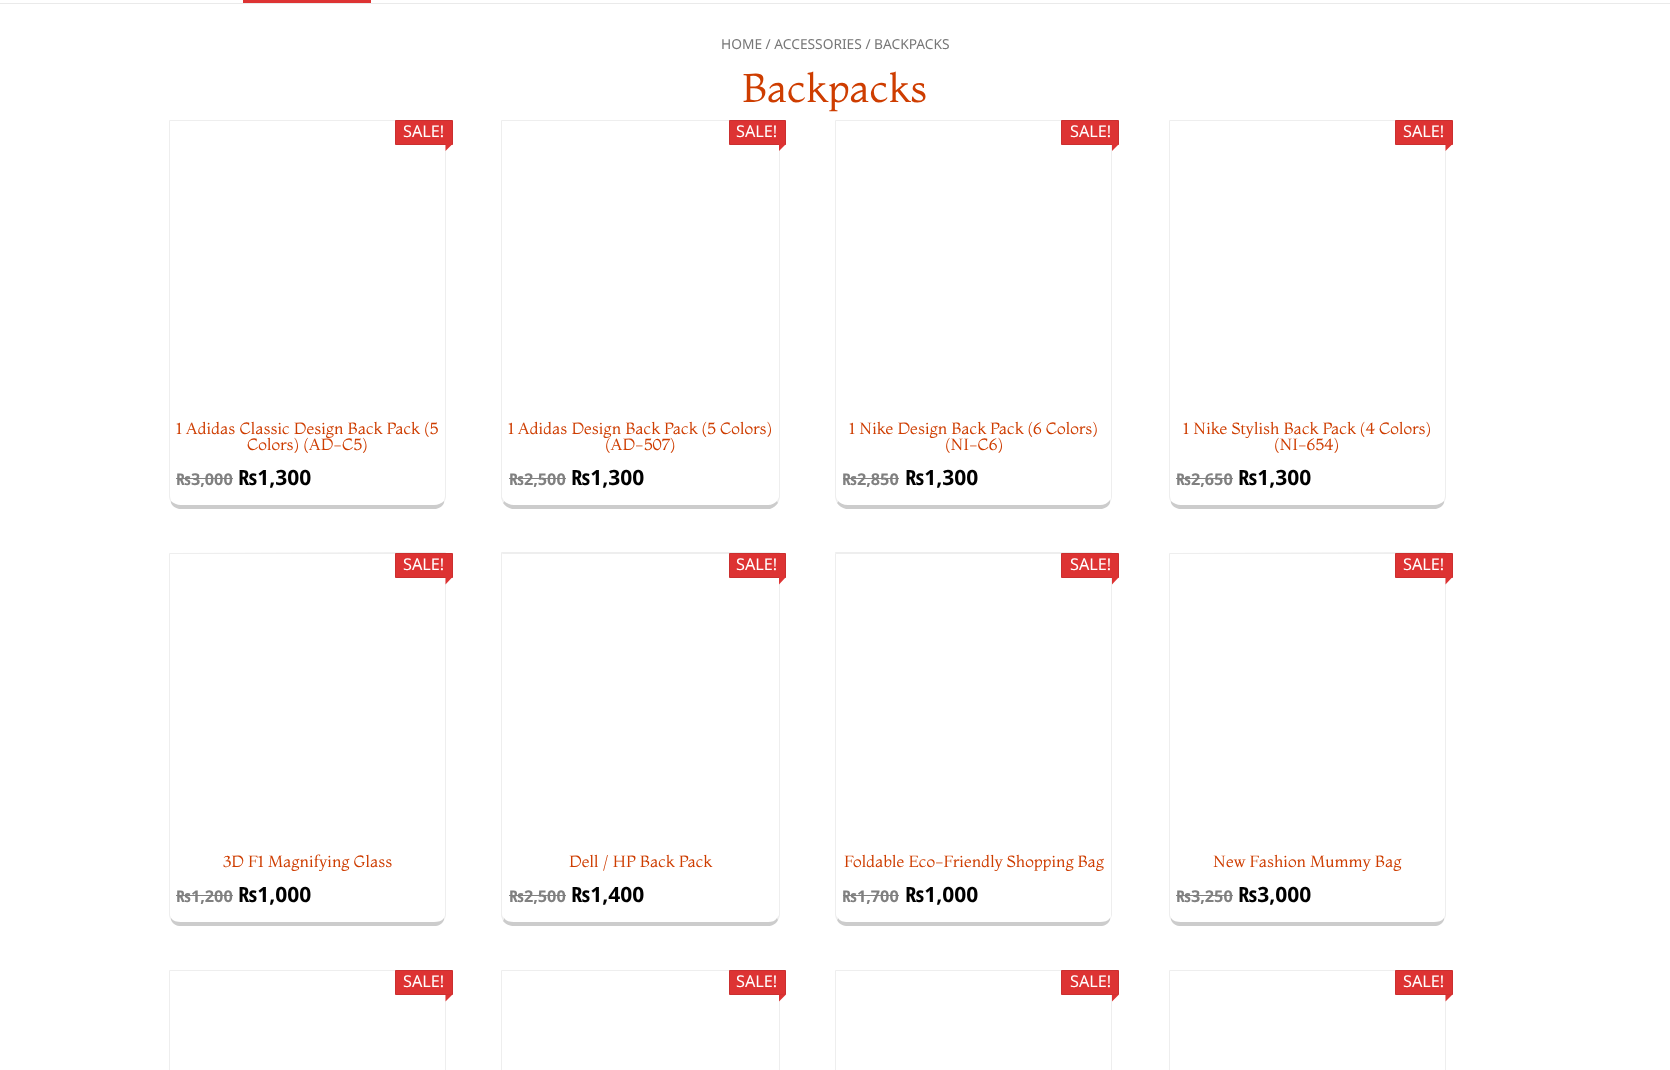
(async () => {
const canvas = document.querySelector("canvas")
canvas.width = 1670
canvas.height = 1070
const c = canvas.getContext("2d")
c.miterLimit = 4
c.fontKerning = "normal"
function T(s,x,y){c.fillText(s,x,y)}
function R(x,y,w,h){c.fillRect(x,y,w,h)}
let path
c.fillStyle="#fff"
R(0,0,1670,1070)
c.fillStyle="#eaeaea"
R(0,3,1670,1)
c.fillStyle="#d33"
R(243,0,128,3)
c.font="13.75px Noto Sans"
c.fillStyle="#777"
T("HOME / ACCESSORIES / BACKPACKS",721,49)
c.font="40px Montaga"
c.fillStyle="#ce3d00"
T("Backpacks",742,102)
c.fillStyle="#eee"
path = new Path2D("M169 120l1 1h275l1-1z")
c.fill(path)
path = new Path2D("M446 120v376c0 2-1 5-2 7v-2c0-2 1-3 1-5v-375z")
c.fill(path)
c.fillStyle="#ccc"
path = new Path2D("M179 509c-4-1-7-3-8-6v-2c2 2 6 4 10 4h253c4 0 8-2 10-4v2c-1 3-4 5-8 6z")
c.fill(path)
c.fillStyle="#eee"
path = new Path2D("M169 120v376c0 2 1 5 2 7v-2c0-2-1-3-1-5v-375z")
c.fill(path)
c.fillStyle="#d33"
c.beginPath()
c.rect(395.5,120.5,57,24)
c.fill()
c.strokeStyle="#cb2f2f"
c.stroke()
c.font="16.25px Noto Sans"
c.fillStyle="#fff"
T("SALE!",403,137)
c.fillStyle="#d33"
path = new Path2D("M452.5 144l-7 7v-7z")
c.fill(path)
c.font="16.25px Montaga"
c.fillStyle="#ce3d00"
T("1 Adidas Classic Design Back Pack (5",176,434)
T("Colors) (AD-C5)",247,450)
c.font="bold 16.25px Noto Sans"
c.fillStyle="#808080"
T("₨3,000",176,485)
R(176,478,57,1)
c.font="bold 21px Noto Sans"
c.fillStyle="#000"
T("₨1,300",238,485)
c.fillStyle="#eee"
path = new Path2D("M501 120l1 1h277l1-1z")
c.fill(path)
path = new Path2D("M780 120l-1 1v376l-2 4l1 2c1-2 2-5 2-7z")
c.fill(path)
c.fillStyle="#ccc"
path = new Path2D("M512 509c-4-1-7-3-9-6l1-2c2 2 6 4 10 4h254c4 0 7-2 9-4l1 2c-2 3-5 5-8 6z")
c.fill(path)
c.fillStyle="#eee"
path = new Path2D("M502 121v376l2 4l-1 2l-2-5v-378z")
c.fill(path)
c.fillStyle="#d33"
c.beginPath()
c.rect(729.5,120.5,56,24)
c.fill()
c.stroke()
c.font="16.25px Noto Sans"
c.fillStyle="#fff"
T("SALE!",736,137)
c.fillStyle="#d33"
path = new Path2D("M786 144l-7 7v-7z")
c.fill(path)
c.font="16.25px Montaga"
c.fillStyle="#ce3d00"
T("1 Adidas Design Back Pack (5 Colors)",508,434)
T("(AD-507)",605,450)
c.font="bold 16.25px Noto Sans"
c.fillStyle="#808080"
T("₨2,500",509,485)
R(509,478,57,1)
c.font="bold 21px Noto Sans"
c.fillStyle="#000"
T("₨1,300",571,485)
c.fillStyle="#eee"
path = new Path2D("M835 120l1 1h275v1l1-2z")
c.fill(path)
path = new Path2D("M1112 120v376c0 2-1 5-2 7v-3c1-1 1-2 1-4v-374z")
c.fill(path)
c.fillStyle="#ccc"
path = new Path2D("M846 509c-4-1-7-3-9-6l1-2c2 2 5 4 10 4h252c4 0 8-2 10-5v3c-1 3-4 5-8 6z")
c.fill(path)
c.fillStyle="#eee"
path = new Path2D("M836 121l-1-1v376c0 2 1 5 2 7l1-2c-1-2-2-3-2-5z")
c.fill(path)
c.fillStyle="#d33"
c.beginPath()
c.rect(1061.5,120.5,57,24)
c.fill()
c.stroke()
c.font="16.25px Noto Sans"
c.fillStyle="#fff"
T("SALE!",1070,137)
c.fillStyle="#d33"
path = new Path2D("M1119 144l-7 7v-7z")
c.fill(path)
c.font="16.25px Montaga"
c.fillStyle="#ce3d00"
T("1 Nike Design Back Pack (6 Colors)",849,434)
T("(NI-C6)",945,450)
c.font="bold 16.25px Noto Sans"
c.fillStyle="#808080"
T("₨2,850",842,485)
R(843,478,56,1)
c.font="bold 21px Noto Sans"
c.fillStyle="#000"
T("₨1,300",905,485)
c.fillStyle="#eee"
path = new Path2D("M1169 120l1 1h275l1-1z")
c.fill(path)
path = new Path2D("M1446 120v376c0 2-1 5-2 7v-2c0-2 1-3 1-5v-375z")
c.fill(path)
c.fillStyle="#ccc"
path = new Path2D("M1179 509c-4-1-7-3-8-6v-2c2 2 6 4 10 4h253c4 0 8-2 10-4v2c-1 3-4 5-8 6z")
c.fill(path)
c.fillStyle="#eee"
path = new Path2D("M1169 120v376c0 2 1 5 2 7v-2c0-2-1-3-1-5v-375z")
c.fill(path)
c.fillStyle="#d33"
c.beginPath()
c.rect(1395.5,120.5,57,24)
c.fill()
c.stroke()
c.font="16.25px Noto Sans"
c.fillStyle="#fff"
T("SALE!",1403,137)
c.fillStyle="#d33"
path = new Path2D("M1452.5 144l-7 7v-7z")
c.fill(path)
c.font="16.25px Montaga"
c.fillStyle="#ce3d00"
T("1 Nike Stylish Back Pack (4 Colors)",1183,434)
T("(NI-654)",1274,450)
c.font="bold 16.25px Noto Sans"
c.fillStyle="#808080"
T("₨2,650",1176,485)
R(1176,478,57,1)
c.font="bold 21px Noto Sans"
c.fillStyle="#000"
T("₨1,300",1238,485)
c.fillStyle="#eee"
path = new Path2D("M169 553l277-1l-1 2h-275z")
c.fill(path)
path = new Path2D("M446 553v361c0 2-1 5-2 6v-2l1-3v-361z")
c.fill(path)
c.fillStyle="#ccc"
path = new Path2D("M444 920c-2 4-5 6-10 6h-253c-5 0-8-2-10-6v-2c2 3 6 4 10 4h253c4 0 8-1 10-4z")
c.fill(path)
c.fillStyle="#eee"
path = new Path2D("M170 554v361l1 3v2c-1-1-2-4-2-6v-361z")
c.fill(path)
c.fillStyle="#d33"
c.beginPath()
c.rect(395.5,553.5,57,24)
c.fill()
c.stroke()
c.font="16.25px Noto Sans"
c.fillStyle="#fff"
T("SALE!",403,570)
c.fillStyle="#d33"
path = new Path2D("M452.5 577l-7 7.5v-7.5z")
c.fill(path)
c.font="16.25px Montaga"
c.fillStyle="#ce3d00"
T("3D F1 Magnifying Glass",223,867)
c.font="bold 16.25px Noto Sans"
c.fillStyle="#808080"
T("₨1,200",176,902)
R(176,895,57,1)
c.font="bold 21px Noto Sans"
c.fillStyle="#000"
T("₨1,000",238,902)
c.fillStyle="#eee"
path = new Path2D("M501 552l2 2h275l2-2z")
c.fill(path)
path = new Path2D("M780 552l-2 2h1v361l-2 3l1 2c1-1 2-4 2-6z")
c.fill(path)
c.fillStyle="#ccc"
path = new Path2D("M778 920c-2 4-6 6-10 6h-254c-4 0-9-2-11-5l1-3c2 3 6 4 10 4h254c4 0 7-1 9-4z")
c.fill(path)
c.fillStyle="#eee"
path = new Path2D("M502 554v360c0 2 1 3 2 4l-1 3l-2-5v-364l2 2z")
c.fill(path)
c.fillStyle="#d33"
c.beginPath()
c.rect(729.5,553.5,56,24)
c.fill()
c.stroke()
c.font="16.25px Noto Sans"
c.fillStyle="#fff"
T("SALE!",736,570)
c.fillStyle="#d33"
path = new Path2D("M786 577l-7 7.5v-7.5z")
c.fill(path)
c.font="16.25px Montaga"
c.fillStyle="#ce3d00"
T("Dell / HP Back Pack",569,867)
c.font="bold 16.25px Noto Sans"
c.fillStyle="#808080"
T("₨2,500",509,902)
R(509,895,57,1)
c.font="bold 21px Noto Sans"
c.fillStyle="#000"
T("₨1,400",571,902)
c.fillStyle="#eee"
path = new Path2D("M835 552h277l-1 2h-275z")
c.fill(path)
path = new Path2D("M1112 553v361c0 2-1 4-2 6v-2c1-1 1-2 1-4v-360z")
c.fill(path)
c.fillStyle="#ccc"
path = new Path2D("M1110 920c-2 4-5 6-10 6h-252c-5 0-9-2-11-6l1-2c2 3 5 4 10 4h252c4 0 8-1 10-4z")
c.fill(path)
c.fillStyle="#eee"
path = new Path2D("M836 554l-1-2v362c0 2 1 5 2 6l1-2c-1-1-2-2-2-4z")
c.fill(path)
c.fillStyle="#d33"
c.beginPath()
c.rect(1061.5,553.5,57,24)
c.fill()
c.stroke()
c.font="16.25px Noto Sans"
c.fillStyle="#fff"
T("SALE!",1070,570)
c.fillStyle="#d33"
path = new Path2D("M1119 577l-7 7.5v-7.5z")
c.fill(path)
c.font="16.25px Montaga"
c.fillStyle="#ce3d00"
T("Foldable Eco-Friendly Shopping Bag",844,867)
c.font="bold 16.25px Noto Sans"
c.fillStyle="#808080"
T("₨1,700",842,902)
R(843,895,56,1)
c.font="bold 21px Noto Sans"
c.fillStyle="#000"
T("₨1,000",905,902)
c.fillStyle="#eee"
path = new Path2D("M1169 553l277-1l-1 2h-275z")
c.fill(path)
path = new Path2D("M1446 553v361c0 2-1 5-2 6v-2l1-3v-361z")
c.fill(path)
c.fillStyle="#ccc"
path = new Path2D("M1444 920c-2 4-5 6-10 6h-253c-5 0-8-2-10-6v-2c2 3 6 4 10 4h253c4 0 8-1 10-4z")
c.fill(path)
c.fillStyle="#eee"
path = new Path2D("M1170 554v361l1 3v2c-1-1-2-4-2-6v-361z")
c.fill(path)
c.fillStyle="#d33"
c.beginPath()
c.rect(1395.5,553.5,57,24)
c.fill()
c.stroke()
c.font="16.25px Noto Sans"
c.fillStyle="#fff"
T("SALE!",1403,570)
c.fillStyle="#d33"
path = new Path2D("M1452.5 577l-7 7.5v-7.5z")
c.fill(path)
c.font="16.25px Montaga"
c.fillStyle="#ce3d00"
T("New Fashion Mummy Bag",1213,867)
c.font="bold 16.25px Noto Sans"
c.fillStyle="#808080"
T("₨3,250",1176,902)
R(1176,895,57,1)
c.font="bold 21px Noto Sans"
c.fillStyle="#000"
T("₨3,000",1238,902)
c.fillStyle="#eee"
path = new Path2D("M169 970l1 1h275l1-1z")
c.fill(path)
path = new Path2D("M446 970v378c0 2-1 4-2 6v-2l1-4v-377z")
c.fill(path)
path = new Path2D("M169 970v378c0 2 1 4 2 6v-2l-1-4v-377z")
c.fill(path)
c.fillStyle="#d33"
c.beginPath()
c.rect(395.5,970.5,57,24)
c.fill()
c.stroke()
c.font="16.25px Noto Sans"
c.fillStyle="#fff"
T("SALE!",403,987)
c.fillStyle="#d33"
path = new Path2D("M452.5 994.5l-7 7v-7z")
c.fill(path)
c.fillStyle="#eee"
path = new Path2D("M501 970l1 1h277l1-1z")
c.fill(path)
path = new Path2D("M780 970l-1 1v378l-2 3l1 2c1-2 2-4 2-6z")
c.fill(path)
path = new Path2D("M502 971v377c0 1 1 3 2 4l-1 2l-2-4v-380z")
c.fill(path)
c.fillStyle="#d33"
c.beginPath()
c.rect(729.5,970.5,56,24)
c.fill()
c.stroke()
c.fillStyle="#fff"
T("SALE!",736,987)
c.fillStyle="#d33"
path = new Path2D("M786 994.5l-7 7v-7z")
c.fill(path)
c.fillStyle="#eee"
path = new Path2D("M835 970l1 1h275v1l1-2z")
c.fill(path)
path = new Path2D("M1112 970v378c0 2-1 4-2 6v-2c1-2 1-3 1-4v-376z")
c.fill(path)
path = new Path2D("M836 971l-1-1v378c0 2 1 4 2 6l1-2c-1-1-2-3-2-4z")
c.fill(path)
c.fillStyle="#d33"
c.beginPath()
c.rect(1061.5,970.5,57,24)
c.fill()
c.stroke()
c.fillStyle="#fff"
T("SALE!",1070,987)
c.fillStyle="#d33"
path = new Path2D("M1119 994.5l-7 7v-7z")
c.fill(path)
c.fillStyle="#eee"
path = new Path2D("M1169 970l1 1h275l1-1z")
c.fill(path)
path = new Path2D("M1446 970v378c0 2-1 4-2 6v-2l1-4v-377z")
c.fill(path)
path = new Path2D("M1169 970v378c0 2 1 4 2 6v-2l-1-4v-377z")
c.fill(path)
c.fillStyle="#d33"
c.beginPath()
c.rect(1395.5,970.5,57,24)
c.fill()
c.stroke()
c.fillStyle="#fff"
T("SALE!",1403,987)
c.fillStyle="#d33"
path = new Path2D("M1452.5 994.5l-7 7v-7z")
c.fill(path)
})()
